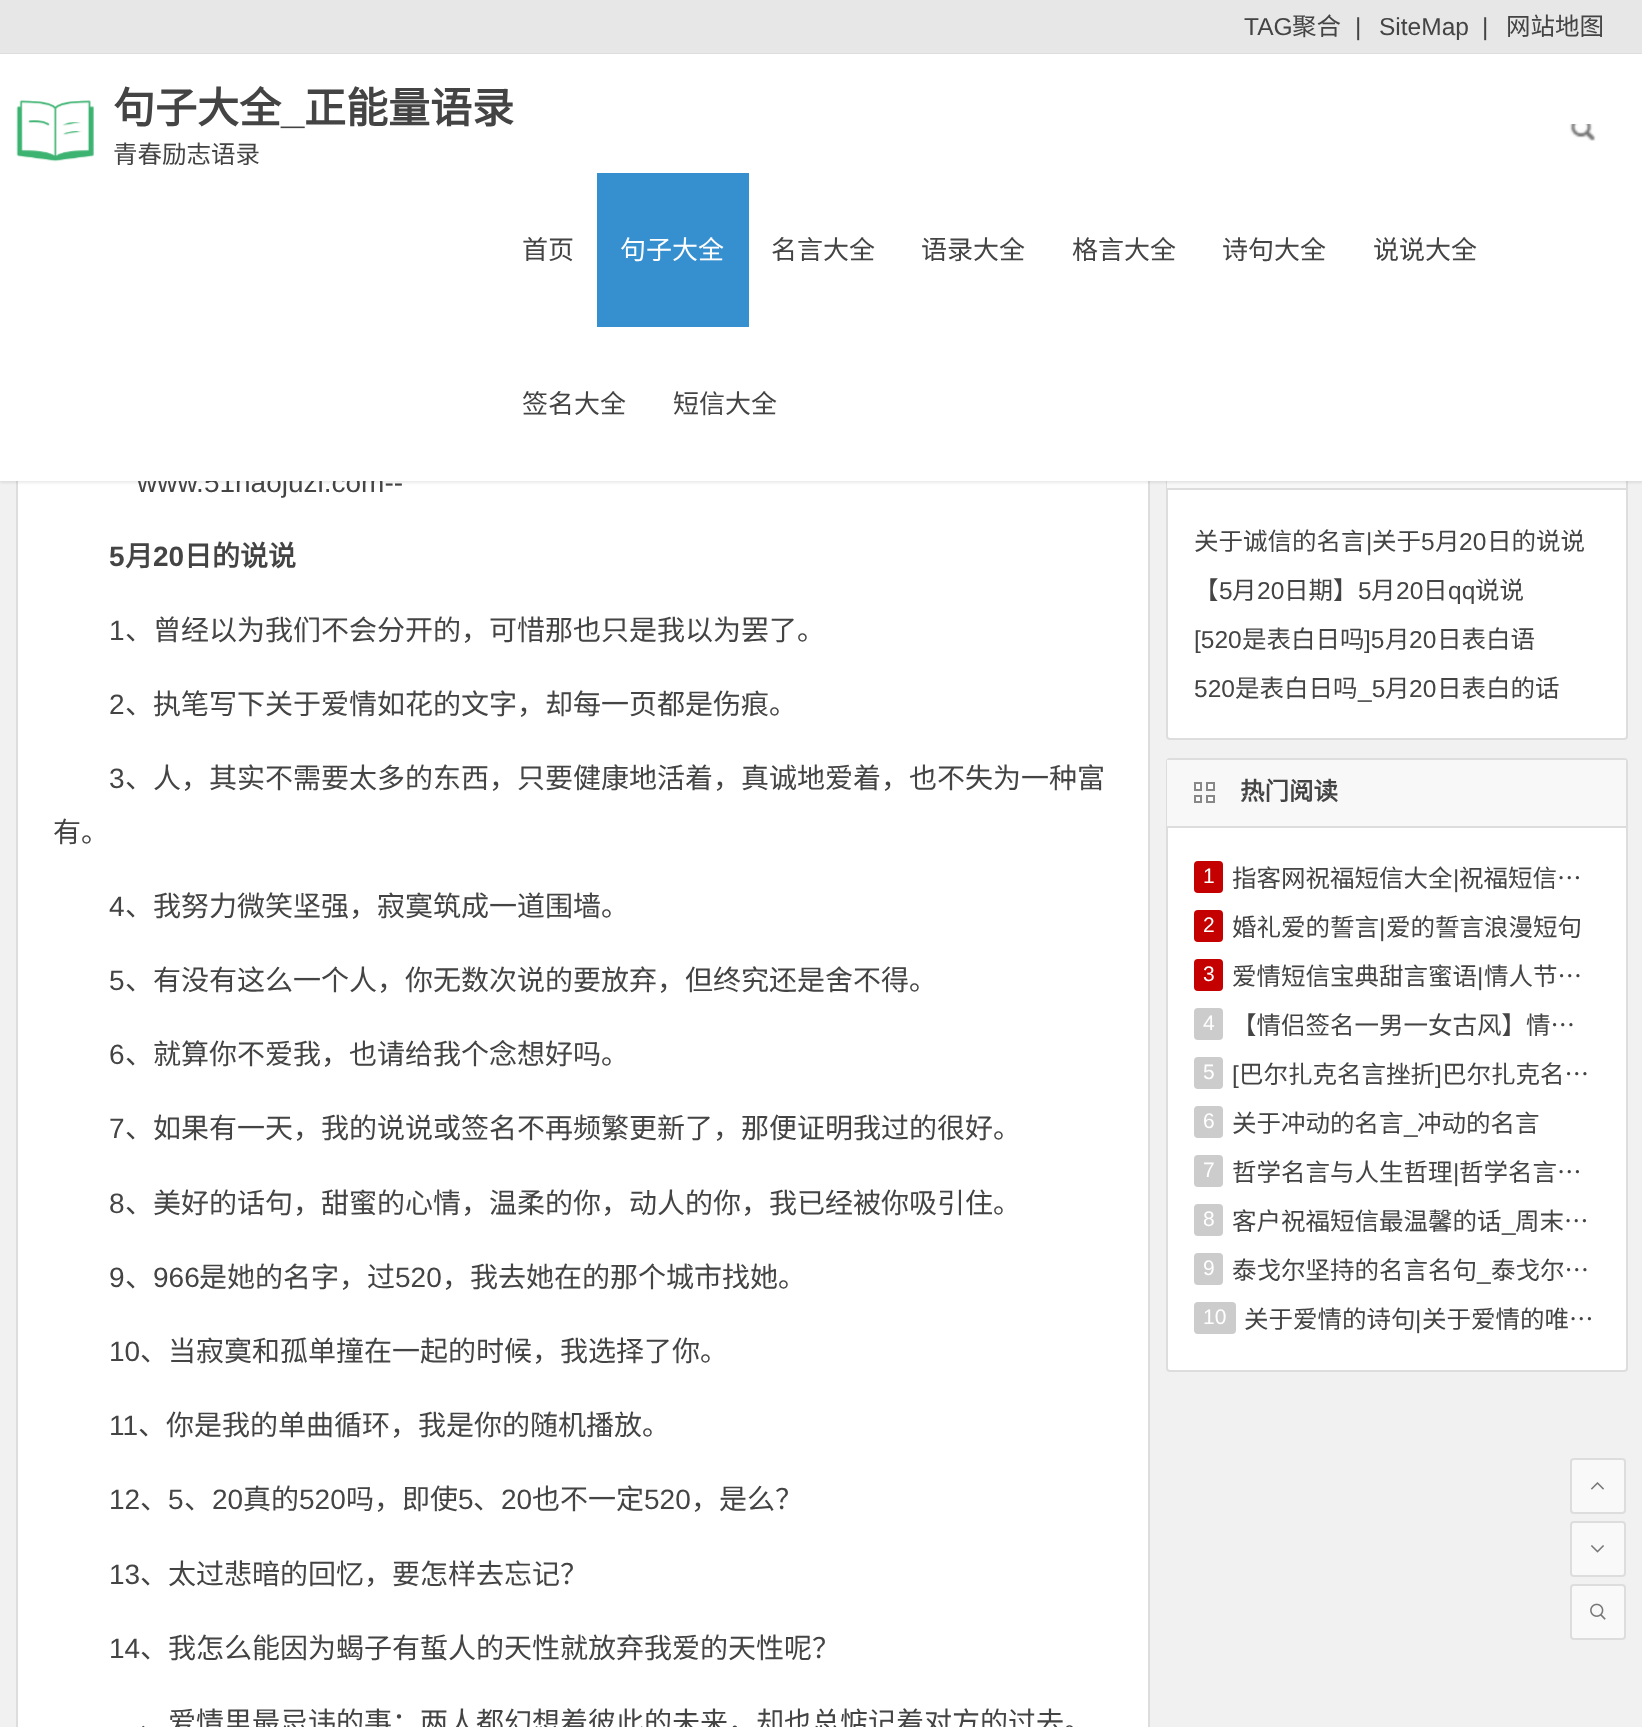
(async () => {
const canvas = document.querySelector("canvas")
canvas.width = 1642
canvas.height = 1727
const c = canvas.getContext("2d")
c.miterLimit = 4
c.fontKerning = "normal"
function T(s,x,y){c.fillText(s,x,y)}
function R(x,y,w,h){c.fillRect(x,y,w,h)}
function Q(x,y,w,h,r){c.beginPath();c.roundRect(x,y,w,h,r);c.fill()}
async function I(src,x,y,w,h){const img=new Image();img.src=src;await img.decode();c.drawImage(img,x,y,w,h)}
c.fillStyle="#f1f1f1"
R(0,0,1642,1727)
c.fillStyle="#e7e7e7"
R(0,0,1642,53)
c.fillStyle="#dedede"
R(0,53,1642,1)
c.font="24.5px Liberation Sans"
c.fillStyle="#444"
T("TAG",1244,35)
c.font="24.5px Noto Sans CJK SC"
T("聚合",1292,35)
c.font="24.5px Liberation Sans"
T("|",1355,35)
T("SiteMap",1379,35)
T("|",1482,35)
c.font="24.5px Noto Sans CJK SC"
T("网站地图",1506,35)
c.fillStyle="#fff"
R(18,481,1130,1246)
c.strokeStyle="#ddd"
c.lineWidth=2
c.strokeRect(17,255,1132,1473)
c.beginPath()
c.roundRect(1167,423,460,316,3)
c.fill()
c.stroke()
c.fillStyle="#f8f8f8"
R(1167,481,459,7)
c.fillStyle="#00000014"
c.filter="blur(1px)"
c.beginPath()
c.rect(0,56,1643,427)
c.fill()
c.filter="none"
c.font="28px Liberation Sans"
c.fillStyle="#444"
T("www.51haojuzi.com--",137,492)
c.fillStyle="#fff"
R(0,54,1642,427)
await I("1.png",16,100,78,62)
c.font="bold 42px Noto Sans CJK SC"
c.fillStyle="#444"
T("句子大全",113,123)
T("正能量语录",304,123)
c.font="bold 42px Liberation Sans"
T("_",281,123)
c.font="24.5px Noto Sans CJK SC"
T("青春励志语录",113,163)
await I("2.png",1569,124,27,17)
c.font="26px Noto Sans CJK SC"
T("首页",522,259)
c.fillStyle="#3690cf"
R(597,173,152,154)
c.fillStyle="#fff"
T("句子大全",620,259)
c.fillStyle="#444"
T("名言大全",771,259)
T("语录大全",921,259)
T("格言大全",1072,259)
T("诗句大全",1222,259)
T("说说大全",1373,259)
T("签名大全",522,413)
T("短信大全",673,413)
c.font="bold 28px Liberation Sans"
T("5",109,566)
c.font="bold 28px Noto Sans CJK SC"
T("月",125,566)
c.font="bold 28px Liberation Sans"
T("20",153,566)
c.font="bold 28px Noto Sans CJK SC"
T("日的说说",184,566)
c.font="28px Liberation Sans"
T("1",109,640)
c.font="28px Noto Sans CJK SC"
T("、曾经以为我们不会分开的，可惜那也只是我以为罢了。",125,640)
c.font="28px Liberation Sans"
T("2",109,714)
c.font="28px Noto Sans CJK SC"
T("、执笔写下关于爱情如花的文字，却每一页都是伤痕。",125,714)
c.font="28px Liberation Sans"
T("3",109,788)
c.font="28px Noto Sans CJK SC"
T("、人，其实不需要太多的东西，只要健康地活着，真诚地爱着，也不失为一种富",125,788)
T("有。",53,842)
c.font="28px Liberation Sans"
T("4",109,916)
c.font="28px Noto Sans CJK SC"
T("、我努力微笑坚强，寂寞筑成一道围墙。",125,916)
c.font="28px Liberation Sans"
T("5",109,990)
c.font="28px Noto Sans CJK SC"
T("、有没有这么一个人，你无数次说的要放弃，但终究还是舍不得。",125,990)
c.font="28px Liberation Sans"
T("6",109,1064)
c.font="28px Noto Sans CJK SC"
T("、就算你不爱我，也请给我个念想好吗。",125,1064)
c.font="28px Liberation Sans"
T("7",109,1138)
c.font="28px Noto Sans CJK SC"
T("、如果有一天，我的说说或签名不再频繁更新了，那便证明我过的很好。",125,1138)
c.font="28px Liberation Sans"
T("8",109,1213)
c.font="28px Noto Sans CJK SC"
T("、美好的话句，甜蜜的心情，温柔的你，动人的你，我已经被你吸引住。",125,1213)
c.font="28px Liberation Sans"
T("9",109,1287)
c.font="28px Noto Sans CJK SC"
T("、",125,1287)
c.font="28px Liberation Sans"
T("966",153,1287)
c.font="28px Noto Sans CJK SC"
T("是她的名字，过",199,1287)
c.font="28px Liberation Sans"
T("520",395,1287)
c.font="28px Noto Sans CJK SC"
T("，我去她在的那个城市找她。",442,1287)
c.font="28px Liberation Sans"
T("10",109,1361)
c.font="28px Noto Sans CJK SC"
T("、当寂寞和孤单撞在一起的时候，我选择了你。",140,1361)
c.font="28px Liberation Sans"
T("11",109,1435)
c.font="28px Noto Sans CJK SC"
T("、你是我的单曲循环，我是你的随机播放。",138,1435)
c.font="28px Liberation Sans"
T("12",109,1509)
c.font="28px Noto Sans CJK SC"
T("、",140,1509)
c.font="28px Liberation Sans"
T("5",168,1509)
c.font="28px Noto Sans CJK SC"
T("、",184,1509)
c.font="28px Liberation Sans"
T("20",212,1509)
c.font="28px Noto Sans CJK SC"
T("真的",243,1509)
c.font="28px Liberation Sans"
T("520",299,1509)
c.font="28px Noto Sans CJK SC"
T("吗，即使",346,1509)
c.font="28px Liberation Sans"
T("5",458,1509)
c.font="28px Noto Sans CJK SC"
T("、",473,1509)
c.font="28px Liberation Sans"
T("20",501,1509)
c.font="28px Noto Sans CJK SC"
T("也不一定",532,1509)
c.font="28px Liberation Sans"
T("520",644,1509)
c.font="28px Noto Sans CJK SC"
T("，是么？",691,1509)
c.font="28px Liberation Sans"
T("13",109,1584)
c.font="28px Noto Sans CJK SC"
T("、太过悲暗的回忆，要怎样去忘记？",140,1584)
c.font="28px Liberation Sans"
T("14",109,1658)
c.font="28px Noto Sans CJK SC"
T("、我怎么能因为蝎子有蜇人的天性就放弃我爱的天性呢？",140,1658)
T("、爱情里最忌讳的事：两人都幻想着彼此的未来，却也总惦记着对方的过去。",140,1732)
c.fillStyle="#ddd"
R(1167,488,459,2)
c.font="24.5px Noto Sans CJK SC"
c.fillStyle="#444"
T("关于诚信的名言",1194,550)
c.font="24.5px Liberation Sans"
T("|",1366,550)
c.font="24.5px Noto Sans CJK SC"
T("关于",1372,550)
c.font="24.5px Liberation Sans"
T("5",1421,550)
c.font="24.5px Noto Sans CJK SC"
T("月",1435,550)
c.font="24.5px Liberation Sans"
T("20",1459,550)
c.font="24.5px Noto Sans CJK SC"
T("日的说说",1487,550)
T("【",1194,599)
c.font="24.5px Liberation Sans"
T("5",1219,599)
c.font="24.5px Noto Sans CJK SC"
T("月",1232,599)
c.font="24.5px Liberation Sans"
T("20",1257,599)
c.font="24.5px Noto Sans CJK SC"
T("日期】",1284,599)
c.font="24.5px Liberation Sans"
T("5",1358,599)
c.font="24.5px Noto Sans CJK SC"
T("月",1371,599)
c.font="24.5px Liberation Sans"
T("20",1396,599)
c.font="24.5px Noto Sans CJK SC"
T("日",1423,599)
c.font="24.5px Liberation Sans"
T("qq",1448,599)
c.font="24.5px Noto Sans CJK SC"
T("说说",1475,599)
c.font="24.5px Liberation Sans"
T("[520",1194,648)
c.font="24.5px Noto Sans CJK SC"
T("是表白日吗",1242,648)
c.font="24.5px Liberation Sans"
T("]5",1364,648)
c.font="24.5px Noto Sans CJK SC"
T("月",1385,648)
c.font="24.5px Liberation Sans"
T("20",1409,648)
c.font="24.5px Noto Sans CJK SC"
T("日表白语",1437,648)
c.font="24.5px Liberation Sans"
T("520",1194,697)
c.font="24.5px Noto Sans CJK SC"
T("是表白日吗",1235,697)
c.font="24.5px Liberation Sans"
T("_5",1358,697)
c.font="24.5px Noto Sans CJK SC"
T("月",1385,697)
c.font="24.5px Liberation Sans"
T("20",1409,697)
c.font="24.5px Noto Sans CJK SC"
T("日表白的话",1437,697)
c.fillStyle="#fff"
c.beginPath()
c.roundRect(1167,759,460,612,3)
c.fill()
c.stroke()
c.fillStyle="#f8f8f8"
R(1167,760,459,66)
c.fillStyle="#ddd"
R(1167,826,459,2)
c.fillStyle="#fff"
c.beginPath()
c.rect(1195,783,6,7)
c.fill()
c.strokeStyle="#888"
c.stroke()
c.beginPath()
c.rect(1207,783,7,7)
c.fill()
c.stroke()
c.beginPath()
c.rect(1195,796,6,6)
c.fill()
c.stroke()
c.beginPath()
c.rect(1207,796,7,6)
c.fill()
c.stroke()
c.font="bold 24.5px Noto Sans CJK SC"
c.fillStyle="#444"
T("热门阅读",1240,800)
c.fillStyle="#c40000"
Q(1194,861,29,32,4)
c.font="21px Liberation Sans"
c.fillStyle="#fff"
T("1",1203,883)
c.font="24.5px Noto Sans CJK SC"
c.fillStyle="#444"
T("指客网祝福短信大全",1232,887)
c.font="24.5px Liberation Sans"
T("|",1453,887)
c.font="24.5px Noto Sans CJK SC"
T("祝福短信…",1459,887)
c.fillStyle="#c40000"
Q(1194,910,29,32,4)
c.font="21px Liberation Sans"
c.fillStyle="#fff"
T("2",1203,932)
c.font="24.5px Noto Sans CJK SC"
c.fillStyle="#444"
T("婚礼爱的誓言",1232,936)
c.font="24.5px Liberation Sans"
T("|",1379,936)
c.font="24.5px Noto Sans CJK SC"
T("爱的誓言浪漫短句",1386,936)
c.fillStyle="#c40000"
Q(1194,959,29,32,4)
c.font="21px Liberation Sans"
c.fillStyle="#fff"
T("3",1203,981)
c.font="24.5px Noto Sans CJK SC"
c.fillStyle="#444"
T("爱情短信宝典甜言蜜语",1232,985)
c.font="24.5px Liberation Sans"
T("|",1477,985)
c.font="24.5px Noto Sans CJK SC"
T("情人节…",1484,985)
c.fillStyle="#ccc"
Q(1194,1008,29,32,4)
c.font="21px Liberation Sans"
c.fillStyle="#fff"
T("4",1203,1030)
c.font="24.5px Noto Sans CJK SC"
c.fillStyle="#444"
T("【情侣签名一男一女古风】情…",1232,1034)
c.fillStyle="#ccc"
Q(1194,1057,29,32,4)
c.font="21px Liberation Sans"
c.fillStyle="#fff"
T("5",1203,1079)
c.font="24.5px Liberation Sans"
c.fillStyle="#444"
T("[",1232,1083)
c.font="24.5px Noto Sans CJK SC"
T("巴尔扎克名言挫折",1239,1083)
c.font="24.5px Liberation Sans"
T("]",1435,1083)
c.font="24.5px Noto Sans CJK SC"
T("巴尔扎克名…",1442,1083)
c.fillStyle="#ccc"
Q(1194,1106,29,32,4)
c.font="21px Liberation Sans"
c.fillStyle="#fff"
T("6",1203,1128)
c.font="24.5px Noto Sans CJK SC"
c.fillStyle="#444"
T("关于冲动的名言",1232,1132)
T("冲动的名言",1417,1132)
c.font="24.5px Liberation Sans"
T("_",1404,1132)
c.fillStyle="#ccc"
Q(1194,1155,29,32,4)
c.font="21px Liberation Sans"
c.fillStyle="#fff"
T("7",1203,1177)
c.font="24.5px Noto Sans CJK SC"
c.fillStyle="#444"
T("哲学名言与人生哲理",1232,1181)
c.font="24.5px Liberation Sans"
T("|",1453,1181)
c.font="24.5px Noto Sans CJK SC"
T("哲学名言…",1459,1181)
c.fillStyle="#ccc"
Q(1194,1204,29,32,4)
c.font="21px Liberation Sans"
c.fillStyle="#fff"
T("8",1203,1226)
c.font="24.5px Noto Sans CJK SC"
c.fillStyle="#444"
T("客户祝福短信最温馨的话",1232,1230)
T("周末…",1515,1230)
c.font="24.5px Liberation Sans"
T("_",1502,1230)
c.fillStyle="#ccc"
Q(1194,1253,29,32,4)
c.font="21px Liberation Sans"
c.fillStyle="#fff"
T("9",1203,1275)
c.font="24.5px Noto Sans CJK SC"
c.fillStyle="#444"
T("泰戈尔坚持的名言名句",1232,1279)
T("泰戈尔…",1491,1279)
c.font="24.5px Liberation Sans"
T("_",1477,1279)
c.fillStyle="#ccc"
Q(1194,1302,42,32,4)
c.font="21px Liberation Sans"
c.fillStyle="#fff"
T("10",1203,1324)
c.font="24.5px Noto Sans CJK SC"
c.fillStyle="#444"
T("关于爱情的诗句",1244,1328)
c.font="24.5px Liberation Sans"
T("|",1415,1328)
c.font="24.5px Noto Sans CJK SC"
T("关于爱情的唯…",1422,1328)
c.fillStyle="#ffffff99"
c.beginPath()
c.roundRect(1571,1459,54,54,3)
c.fill()
c.strokeStyle="#ddd"
c.stroke()
await I("3.png",1590,1482,14,8)
c.beginPath()
c.roundRect(1571,1522,54,54,3)
c.fill()
c.stroke()
await I("4.png",1591,1545,13,8)
c.beginPath()
c.roundRect(1571,1585,54,54,3)
c.fill()
c.stroke()
await I("5.png",1590,1603,16,17)
})()
